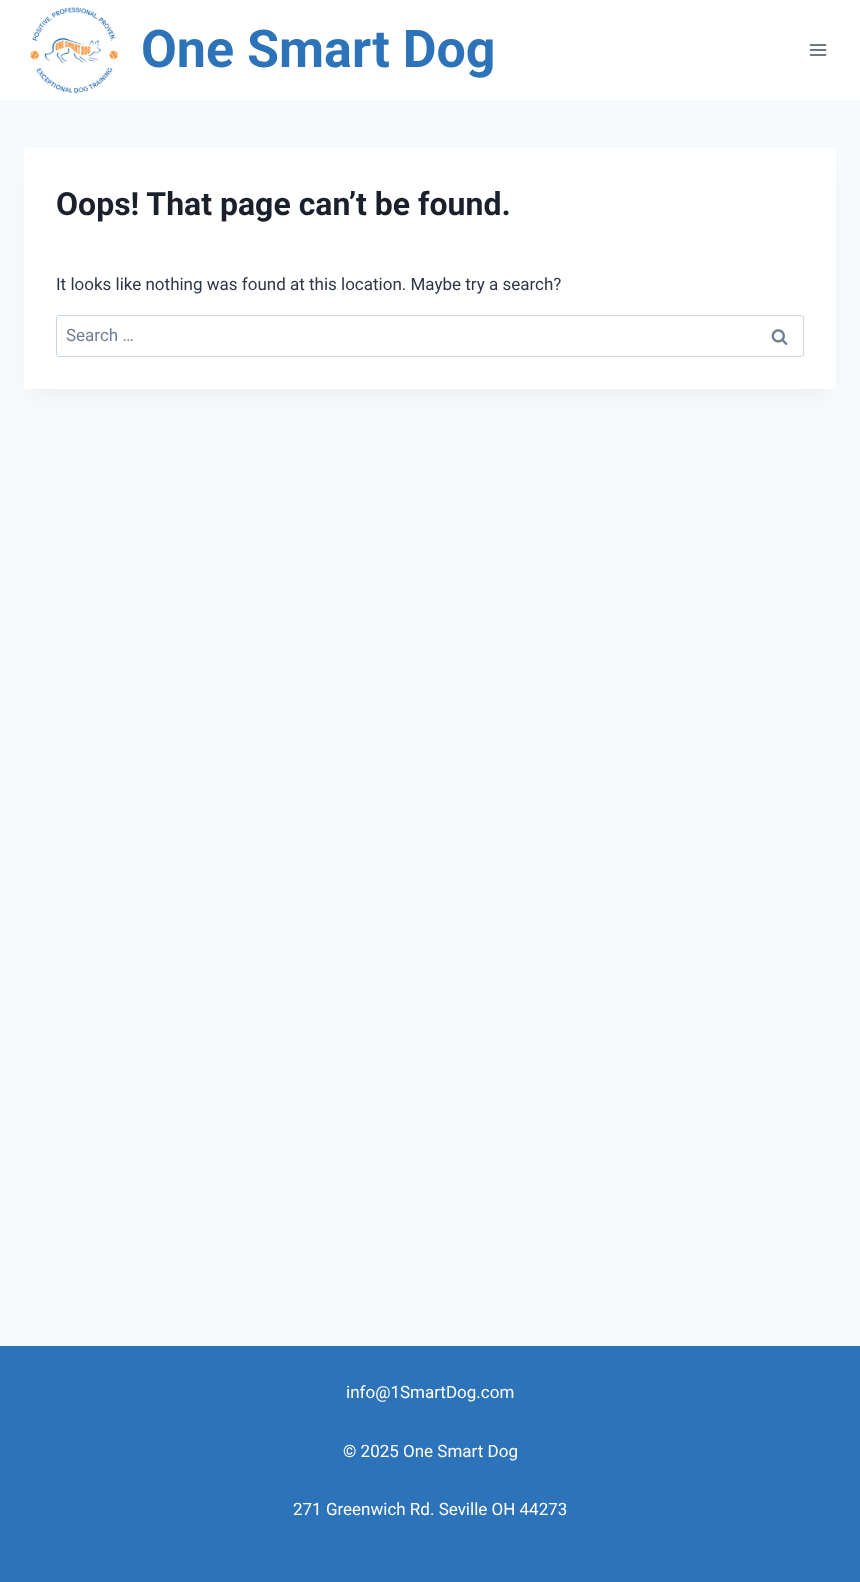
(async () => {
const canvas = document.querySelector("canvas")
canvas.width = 860
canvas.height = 1582
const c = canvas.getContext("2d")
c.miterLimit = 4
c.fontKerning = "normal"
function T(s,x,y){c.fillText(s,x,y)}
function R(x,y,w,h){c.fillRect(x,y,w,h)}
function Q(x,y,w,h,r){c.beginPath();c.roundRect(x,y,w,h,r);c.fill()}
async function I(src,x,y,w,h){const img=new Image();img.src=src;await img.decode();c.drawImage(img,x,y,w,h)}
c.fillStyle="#f7fafc"
R(0,0,860,1582)
c.fillStyle="#fff"
R(0,0,860,100)
await I("1.png",30,7,88,86)
c.font="bold 52px Roboto"
c.fillStyle="#2d73ba"
T("One Smart Dog",141,67)
await I("2.png",809,44,18,12)
c.fillStyle="#0000000d"
c.filter="blur(12.5px)"
c.beginPath()
c.rect(34,173,792,221)
c.fill()
c.filter="none"
c.fillStyle="#fff"
Q(24,148,812,241,4)
c.font="bold 32px Roboto"
c.fillStyle="#1a202c"
T("Oops! That page can’t be found.",56,215)
c.font="17px Roboto"
c.fillStyle="#2d3748"
T("It looks like nothing was found at this location. Maybe try a search?",56,290)
c.beginPath()
c.roundRect(56.5,315.5,747,41,2.5)
c.strokeStyle="#cbd5e0"
c.stroke()
c.fillStyle="#718096"
T("Search …",66,341)
await I("3.png",771,329,17,16)
c.fillStyle="#2d73ba"
R(0,1346,860,236)
c.fillStyle="#fff"
T("info@1SmartDog.com",346,1398)
T("© 2025 One Smart Dog",343,1457)
T("271 Greenwich Rd. Seville OH 44273",293,1515)
})()
